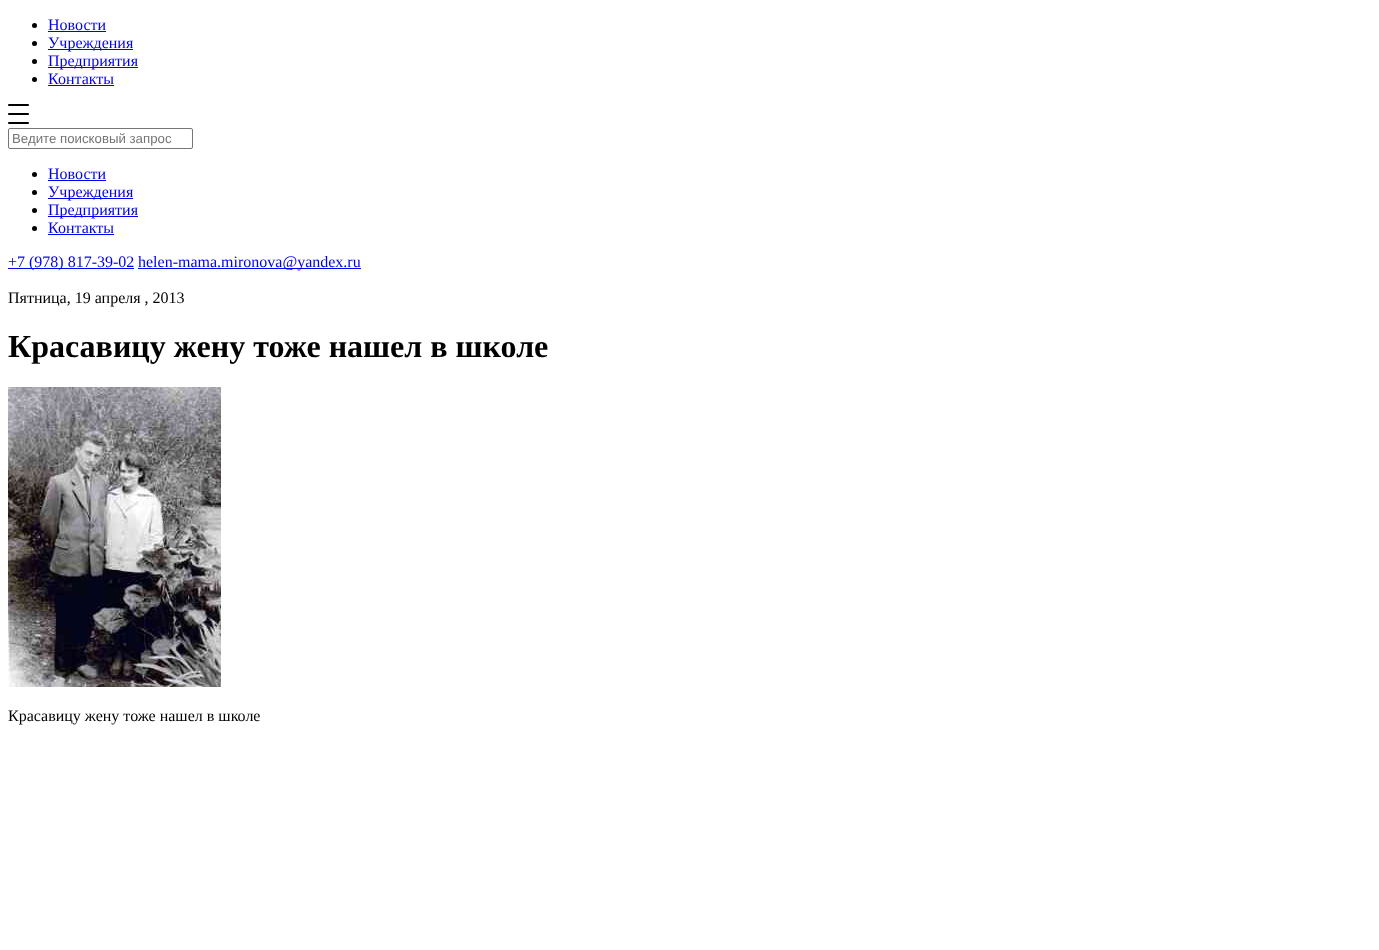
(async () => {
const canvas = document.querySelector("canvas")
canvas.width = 1379
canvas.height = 950
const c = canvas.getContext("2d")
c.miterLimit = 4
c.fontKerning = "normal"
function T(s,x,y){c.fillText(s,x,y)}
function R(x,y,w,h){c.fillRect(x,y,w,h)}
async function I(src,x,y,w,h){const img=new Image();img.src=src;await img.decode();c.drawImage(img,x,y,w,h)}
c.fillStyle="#fff"
R(0,0,1379,950)
c.fillStyle="#000"
c.beginPath()
c.arc(34.5,25.5,2.5,0,7)
c.fill()
c.font="16px Liberation Serif"
c.fillStyle="#00e"
T("Новости",48,30)
R(48,31,58,1)
c.fillStyle="#000"
c.beginPath()
c.arc(34.5,43.5,2.5,0,7)
c.fill()
c.fillStyle="#00e"
R(48,49,85,1)
T("Учреждения",48,48)
c.fillStyle="#000"
c.beginPath()
c.arc(34.5,61.5,2.5,0,7)
c.fill()
c.fillStyle="#00e"
R(48,67,90,1)
T("Предприятия",48,66)
c.fillStyle="#000"
c.beginPath()
c.arc(34.5,79.5,2.5,0,7)
c.fill()
c.fillStyle="#00e"
T("Контакты",48,84)
R(48,85,66,1)
await I("1.png",8,104,21,20)
c.beginPath()
c.roundRect(8.5,128.5,184,20,1.5)
c.strokeStyle="#767676"
c.stroke()
c.font="13.25px Liberation Sans"
c.fillStyle="#757575"
T("Ведите поисковый запрос",12,143)
c.fillStyle="#000"
c.beginPath()
c.arc(34.5,174.5,2.5,0,7)
c.fill()
c.font="16px Liberation Serif"
c.fillStyle="#00e"
T("Новости",48,179)
R(48,180,58,1)
c.fillStyle="#000"
c.beginPath()
c.arc(34.5,192.5,2.5,0,7)
c.fill()
c.fillStyle="#00e"
R(48,198,85,1)
T("Учреждения",48,197)
c.fillStyle="#000"
c.beginPath()
c.arc(34.5,210.5,2.5,0,7)
c.fill()
c.fillStyle="#00e"
R(48,216,90,1)
T("Предприятия",48,215)
c.fillStyle="#000"
c.beginPath()
c.arc(34.5,228.5,2.5,0,7)
c.fill()
c.fillStyle="#00e"
T("Контакты",48,233)
R(48,234,66,1)
R(8,268,126,1)
T("+7 (978) 817-39-02",8,267)
R(138,268,223,1)
T("helen-mama.mironova@yandex.ru",138,267)
c.fillStyle="#000"
T("Пятница, 19 апреля , 2013",8,303)
c.font="bold 32px Liberation Serif"
T("Красавицу жену тоже нашел в школе",8,357)
await I("2.png",8,387,213,300)
c.font="16px Liberation Serif"
T("Красавицу жену тоже нашел в школе",8,721)
})()
